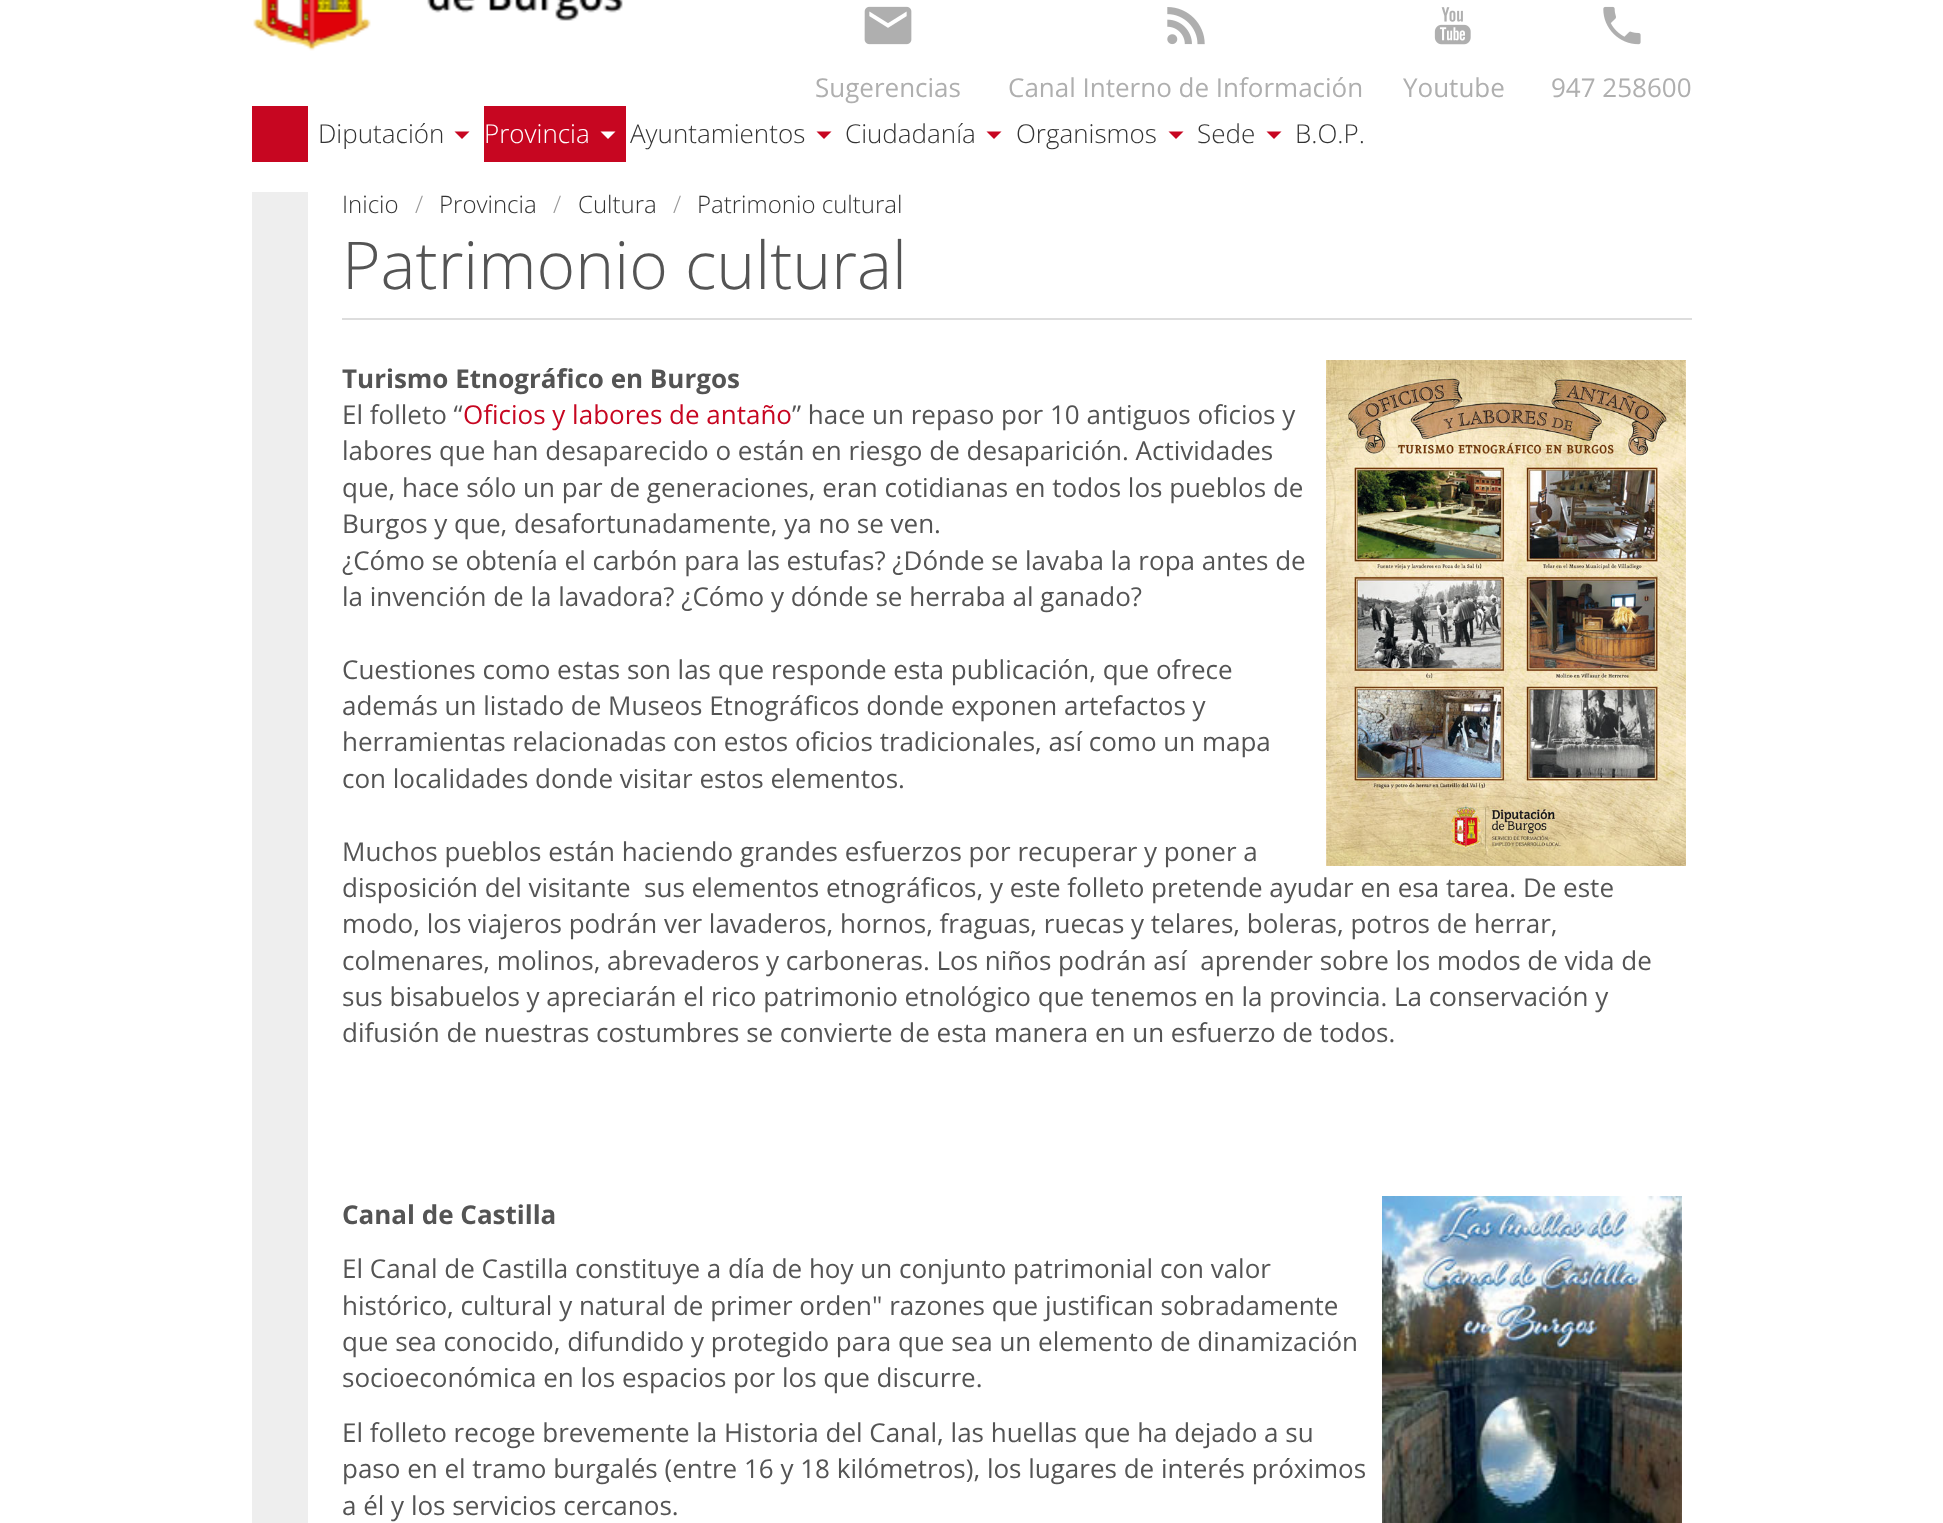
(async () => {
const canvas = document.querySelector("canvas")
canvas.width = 1943
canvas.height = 1523
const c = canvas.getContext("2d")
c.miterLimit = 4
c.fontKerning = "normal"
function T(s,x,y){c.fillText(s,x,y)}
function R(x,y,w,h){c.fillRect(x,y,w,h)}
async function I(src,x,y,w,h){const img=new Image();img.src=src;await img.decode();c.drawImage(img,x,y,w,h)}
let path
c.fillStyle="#fff"
R(0,0,1943,1523)
await I("1.png",253,0,370,51)
await I("2.png",864,6,48,39)
c.font="26px Open Sans"
c.fillStyle="#afafaf"
T("Sugerencias",815,97)
await I("3.png",1167,7,38,38)
T("Canal Interno de Información",1008,97)
await I("4.png",1434,7,37,38)
T("Youtube",1403,97)
await I("5.png",1603,6,38,39)
T("947 258600",1551,97)
c.fillStyle="#c70621"
R(252,106,56,56)
c.font="300 26px Open Sans"
c.fillStyle="#333"
T("Diputación",318,143)
c.fillStyle="#c70621"
path = new Path2D("M454.5 131.5l7.5 7.5l7.5-7.5z")
c.fill(path)
R(484,106,142,56)
c.fillStyle="#fff"
T("Provincia",484,143)
path = new Path2D("M600.5 131.5l7.5 7.5l7.5-7.5z")
c.fill(path)
c.fillStyle="#333"
T("Ayuntamientos",630,143)
c.fillStyle="#c70621"
path = new Path2D("M816.5 131.5l7.5 7.5l7.5-7.5z")
c.fill(path)
c.fillStyle="#333"
T("Ciudadanía",845,143)
c.fillStyle="#c70621"
path = new Path2D("M986.5 131.5l7.5 7.5l7.5-7.5z")
c.fill(path)
c.fillStyle="#333"
T("Organismos",1016,143)
c.fillStyle="#c70621"
path = new Path2D("M1168.5 131.5l7.5 7.5l7.5-7.5z")
c.fill(path)
c.fillStyle="#333"
T("Sede",1197,143)
c.fillStyle="#c70621"
path = new Path2D("M1266.5 131.5l7.5 7.5l7.5-7.5z")
c.fill(path)
c.fillStyle="#333"
T("B.O.P.",1295,143)
c.fillStyle="#eee"
R(252,192,56,1331)
c.font="300 24px Open Sans"
c.fillStyle="#333"
T("Inicio",342,213)
c.fillStyle="#999"
T("/",415,213)
c.fillStyle="#333"
T("Provincia",439,213)
c.fillStyle="#999"
T("/",553,213)
c.fillStyle="#333"
T("Cultura",578,213)
c.fillStyle="#999"
T("/",673,213)
c.fillStyle="#333"
T("Patrimonio cultural",697,213)
c.fillStyle="#ddd"
R(342,318,1350,2)
c.font="300 66px Open Sans"
c.fillStyle="#545454"
T("Patrimonio cultural",342,289)
c.font="bold 26px Open Sans"
T("Turismo Etnográfico en Burgos",342,388)
await I("6.png",1326,360,360,506)
c.font="26px Open Sans"
T("El folleto “",342,424)
c.fillStyle="#c70621"
T("Oficios y labores de antaño",463,424)
c.fillStyle="#545454"
T("” hace un repaso por 10 antiguos oficios y",792,424)
T("labores que han desaparecido o están en riesgo de desaparición. Actividades",342,460)
T("que, hace sólo un par de generaciones, eran cotidianas en todos los pueblos de",342,497)
T("Burgos y que, desafortunadamente, ya no se ven.",342,533)
T("¿Cómo se obtenía el carbón para las estufas? ¿Dónde se lavaba la ropa antes de",342,570)
T("la invención de la lavadora? ¿Cómo y dónde se herraba al ganado?",342,606)
T("Cuestiones como estas son las que responde esta publicación, que ofrece",342,679)
T("además un listado de Museos Etnográficos donde exponen artefactos y",342,715)
T("herramientas relacionadas con estos oficios tradicionales, así como un mapa",342,751)
T("con localidades donde visitar estos elementos.",342,788)
T("Muchos pueblos están haciendo grandes esfuerzos por recuperar y poner a",342,861)
T("disposición del visitante  sus elementos etnográficos, y este folleto pretende ayudar en esa tarea. De este",342,897)
T("modo, los viajeros podrán ver lavaderos, hornos, fraguas, ruecas y telares, boleras, potros de herrar,",342,933)
T("colmenares, molinos, abrevaderos y carboneras. Los niños podrán así  aprender sobre los modos de vida de",342,970)
T("sus bisabuelos y apreciarán el rico patrimonio etnológico que tenemos en la provincia. La conservación y",342,1006)
T("difusión de nuestras costumbres se convierte de esta manera en un esfuerzo de todos.",342,1042)
c.font="bold 26px Open Sans"
T("Canal de Castilla",342,1224)
await I("7.png",1382,1196,300,327)
c.font="26px Open Sans"
T("El Canal de Castilla constituye a día de hoy un conjunto patrimonial con valor",342,1278)
T("histórico, cultural y natural de primer orden\" razones que justifican sobradamente",342,1315)
T("que sea conocido, difundido y protegido para que sea un elemento de dinamización",342,1351)
T("socioeconómica en los espacios por los que discurre.",342,1387)
T("El folleto recoge brevemente la Historia del Canal, las huellas que ha dejado a su",342,1442)
T("paso en el tramo burgalés (entre 16 y 18 kilómetros), los lugares de interés próximos",342,1478)
T("a él y los servicios cercanos.",342,1515)
})()
